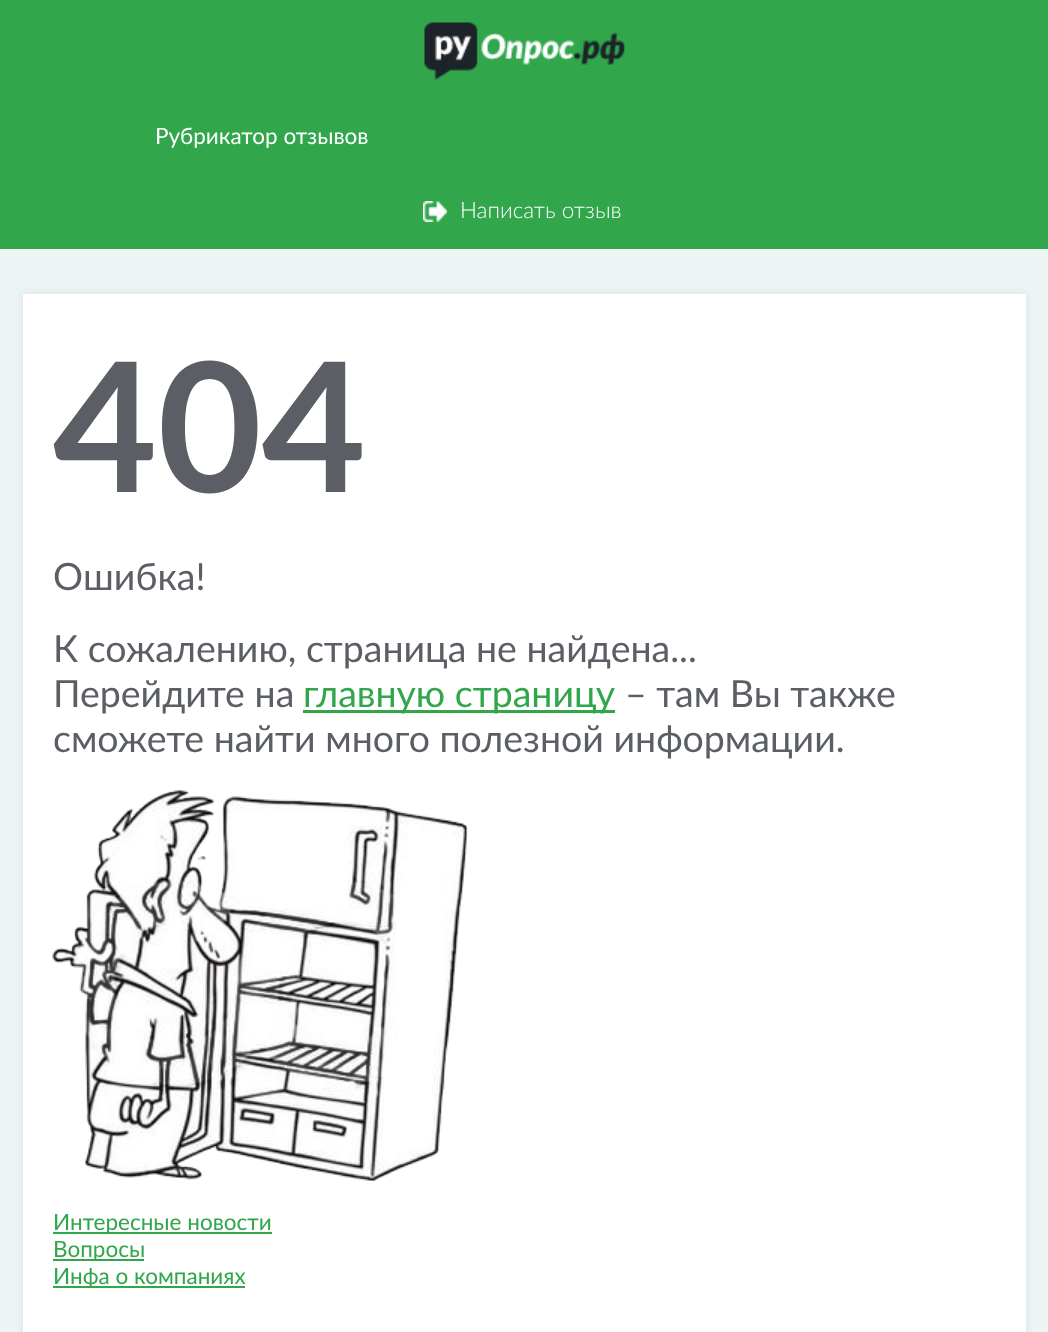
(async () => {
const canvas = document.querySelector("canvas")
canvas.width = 1048
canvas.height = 1332
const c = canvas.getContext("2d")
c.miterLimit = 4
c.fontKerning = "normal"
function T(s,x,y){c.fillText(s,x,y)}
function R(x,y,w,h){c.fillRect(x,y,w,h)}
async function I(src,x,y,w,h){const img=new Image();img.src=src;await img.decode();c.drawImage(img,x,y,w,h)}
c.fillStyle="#31a64a"
R(0,0,1048,1332)
await I("1.png",424,22,202,58)
c.font="22.5px Lato"
c.fillStyle="#fff"
T("Рубрикатор отзывов",155,144)
await I("2.png",423,201,24,21)
c.font="300 22.5px Lato"
T("Написать отзыв",460,218)
c.fillStyle="#edf4f4"
R(0,249,1048,1083)
c.fillStyle="#adc4d359"
c.filter="blur(4px)"
c.beginPath()
c.rect(23,294,1003,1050)
c.fill()
c.filter="none"
c.fillStyle="#fff"
R(23,294,1003,1038)
c.font="bold 180px Lato"
c.fillStyle="#5b5f65"
T("404",53,492)
c.font="37.5px Lato"
T("Ошибка!",53,590)
T("К сожалению, страница не найдена...",53,662)
T("Перейдите на",53,707)
c.fillStyle="#31a64a"
R(303,710,312,3)
T("главную страницу",303,707)
c.fillStyle="#5b5f65"
T("– там Вы также",625,707)
T("сможете найти много полезной информации.",53,752)
await I("3.png",52,790,416,391)
c.fillStyle="#31a64a"
R(53,1232,219,2)
c.font="22.5px Lato"
T("Интересные новости",53,1230)
R(53,1259,91,2)
T("Вопросы",53,1257)
R(53,1286,192,2)
T("Инфа о компаниях",53,1284)
})()
